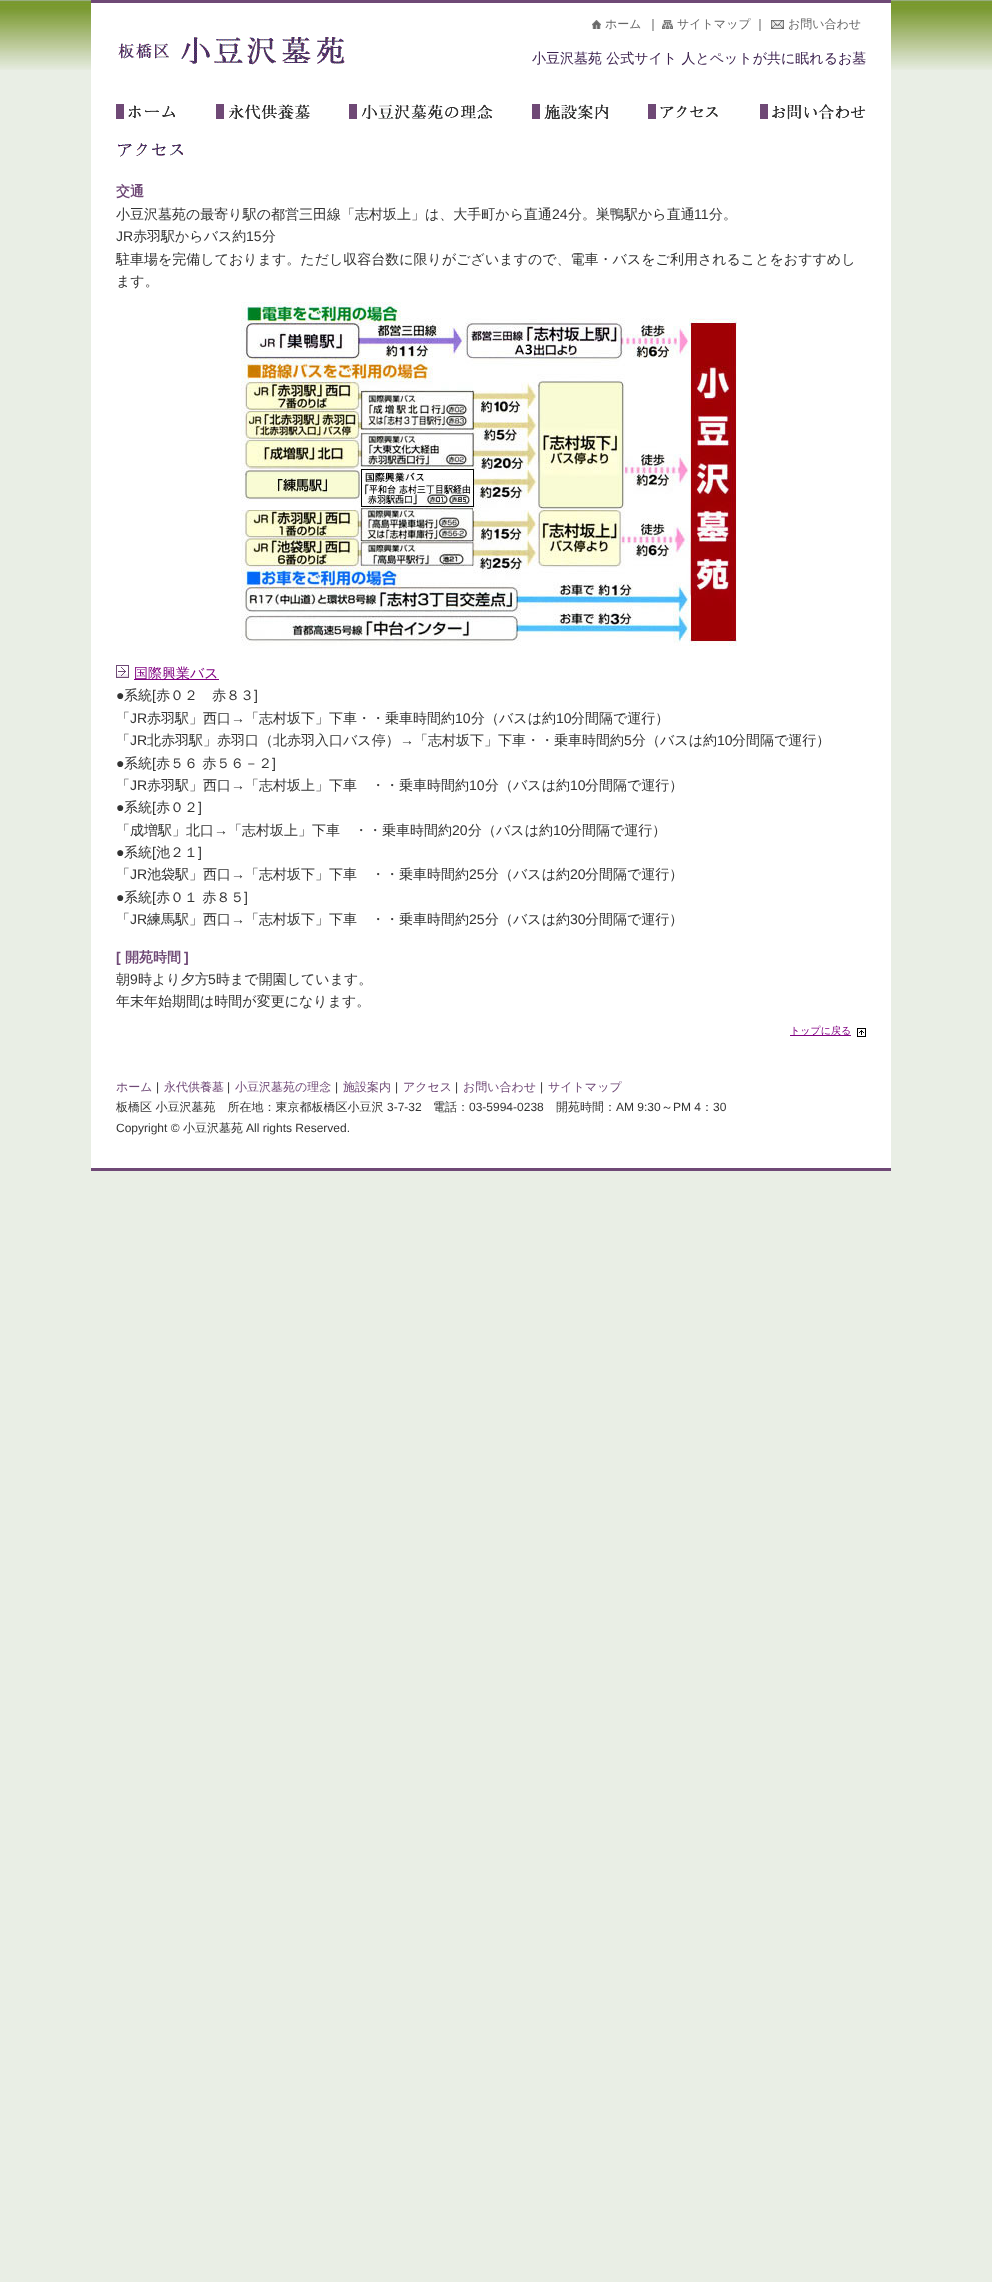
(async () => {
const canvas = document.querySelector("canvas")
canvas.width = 992
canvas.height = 2282
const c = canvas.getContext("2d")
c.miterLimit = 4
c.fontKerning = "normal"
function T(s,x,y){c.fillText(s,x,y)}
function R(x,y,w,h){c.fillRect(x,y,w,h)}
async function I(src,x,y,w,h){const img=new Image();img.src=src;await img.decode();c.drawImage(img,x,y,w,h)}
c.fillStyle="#e9eee5"
R(0,0,992,2282)
await I("1.png",0,0,992,70)
c.fillStyle="#fff"
R(91,3,800,1165)
c.fillStyle="#6f4976"
R(91,0,800,3)
await I("2.png",118,37,227,28)
await I("3.png",592,20,9,9)
c.font="500 12px WenQuanYi Zen Hei"
c.fillStyle="#666"
T("ホーム",605,28)
c.fillStyle="#333"
T("｜",647,28)
await I("4.png",662,20,11,9)
c.fillStyle="#666"
T("サイトマップ",677,28)
c.fillStyle="#333"
T("｜",754,28)
await I("5.png",771,20,13,9)
c.fillStyle="#666"
T("お問い合わせ",788,28)
c.font="500 14px WenQuanYi Zen Hei"
c.fillStyle="#3c214e"
T("小豆沢墓苑 公式サイト 人とペットが共に眠れるお墓",532,63)
await I("6.png",116,104,59,15)
await I("7.png",216,104,94,16)
await I("8.png",349,104,144,16)
await I("9.png",532,104,77,16)
await I("10.png",648,104,70,15)
await I("11.png",760,104,106,16)
await I("12.png",118,143,65,14)
c.font="bold 14px WenQuanYi Zen Hei"
c.fillStyle="#6f4976"
T("交通",116,196)
c.font="500 14px WenQuanYi Zen Hei"
c.fillStyle="#333"
T("小豆沢墓苑の最寄り駅の都営三田線「志村坂上」は、大手町から直通",116,219)
c.font="14px Liberation Sans"
T("24",552,219)
c.font="500 14px WenQuanYi Zen Hei"
T("分。巣鴨駅から直通",568,219)
c.font="14px Liberation Sans"
T("11",694,219)
c.font="500 14px WenQuanYi Zen Hei"
T("分。",709,219)
c.font="14px Liberation Sans"
T("JR",116,241)
c.font="500 14px WenQuanYi Zen Hei"
T("赤羽駅からバス約",133,241)
c.font="14px Liberation Sans"
T("15",246,241)
c.font="500 14px WenQuanYi Zen Hei"
T("分",262,241)
T("駐車場を完備しております。ただし収容台数に限りがございますので、電車・バスをご利用されることをおすすめし",116,264)
T("ます。",116,286)
await I("13.png",241,302,496,344)
await I("14.png",116,665,13,13)
c.fillStyle="#800080"
R(134,679,85,1)
T("国際興業バス",134,678)
c.font="14px Liberation Sans"
c.fillStyle="#333"
T("●",116,700)
c.font="500 14px WenQuanYi Zen Hei"
T("系統",124,700)
c.font="14px Liberation Sans"
T("[",152,700)
c.font="500 14px WenQuanYi Zen Hei"
T("赤０２　赤８３",156,700)
c.font="14px Liberation Sans"
T("]",254,700)
c.font="500 14px WenQuanYi Zen Hei"
T("「",116,723)
c.font="14px Liberation Sans"
T("JR",130,723)
c.font="500 14px WenQuanYi Zen Hei"
T("赤羽駅」西口",147,723)
c.font="14px Liberation Sans"
T("→",231,723)
c.font="500 14px WenQuanYi Zen Hei"
T("「志村坂下」下車・・乗車時間約",245,723)
c.font="14px Liberation Sans"
T("10",455,723)
c.font="500 14px WenQuanYi Zen Hei"
T("分（バスは約",471,723)
c.font="14px Liberation Sans"
T("10",556,723)
c.font="500 14px WenQuanYi Zen Hei"
T("分間隔で運行）",571,723)
T("「",116,745)
c.font="14px Liberation Sans"
T("JR",130,745)
c.font="500 14px WenQuanYi Zen Hei"
T("北赤羽駅」赤羽口（北赤羽入口バス停）",147,745)
c.font="14px Liberation Sans"
T("→",400,745)
c.font="500 14px WenQuanYi Zen Hei"
T("「志村坂下」下車・・乗車時間約",414,745)
c.font="14px Liberation Sans"
T("5",624,745)
c.font="500 14px WenQuanYi Zen Hei"
T("分（バスは約",632,745)
c.font="14px Liberation Sans"
T("10",717,745)
c.font="500 14px WenQuanYi Zen Hei"
T("分間隔で運行）",732,745)
c.font="14px Liberation Sans"
T("●",116,768)
c.font="500 14px WenQuanYi Zen Hei"
T("系統",124,768)
c.font="14px Liberation Sans"
T("[",152,768)
c.font="500 14px WenQuanYi Zen Hei"
T("赤５６ 赤５６－２",156,768)
c.font="14px Liberation Sans"
T("]",272,768)
c.font="500 14px WenQuanYi Zen Hei"
T("「",116,790)
c.font="14px Liberation Sans"
T("JR",130,790)
c.font="500 14px WenQuanYi Zen Hei"
T("赤羽駅」西口",147,790)
c.font="14px Liberation Sans"
T("→",231,790)
c.font="500 14px WenQuanYi Zen Hei"
T("「志村坂上」下車　・・乗車時間約",245,790)
c.font="14px Liberation Sans"
T("10",469,790)
c.font="500 14px WenQuanYi Zen Hei"
T("分（バスは約",485,790)
c.font="14px Liberation Sans"
T("10",570,790)
c.font="500 14px WenQuanYi Zen Hei"
T("分間隔で運行）",585,790)
c.font="14px Liberation Sans"
T("●",116,812)
c.font="500 14px WenQuanYi Zen Hei"
T("系統",124,812)
c.font="14px Liberation Sans"
T("[",152,812)
c.font="500 14px WenQuanYi Zen Hei"
T("赤０２",156,812)
c.font="14px Liberation Sans"
T("]",198,812)
c.font="500 14px WenQuanYi Zen Hei"
T("「成増駅」北口",116,835)
c.font="14px Liberation Sans"
T("→",214,835)
c.font="500 14px WenQuanYi Zen Hei"
T("「志村坂上」下車　・・乗車時間約",228,835)
c.font="14px Liberation Sans"
T("20",452,835)
c.font="500 14px WenQuanYi Zen Hei"
T("分（バスは約",468,835)
c.font="14px Liberation Sans"
T("10",553,835)
c.font="500 14px WenQuanYi Zen Hei"
T("分間隔で運行）",568,835)
c.font="14px Liberation Sans"
T("●",116,857)
c.font="500 14px WenQuanYi Zen Hei"
T("系統",124,857)
c.font="14px Liberation Sans"
T("[",152,857)
c.font="500 14px WenQuanYi Zen Hei"
T("池２１",156,857)
c.font="14px Liberation Sans"
T("]",198,857)
c.font="500 14px WenQuanYi Zen Hei"
T("「",116,879)
c.font="14px Liberation Sans"
T("JR",130,879)
c.font="500 14px WenQuanYi Zen Hei"
T("池袋駅」西口",147,879)
c.font="14px Liberation Sans"
T("→",231,879)
c.font="500 14px WenQuanYi Zen Hei"
T("「志村坂下」下車　・・乗車時間約",245,879)
c.font="14px Liberation Sans"
T("25",469,879)
c.font="500 14px WenQuanYi Zen Hei"
T("分（バスは約",485,879)
c.font="14px Liberation Sans"
T("20",570,879)
c.font="500 14px WenQuanYi Zen Hei"
T("分間隔で運行）",585,879)
c.font="14px Liberation Sans"
T("●",116,902)
c.font="500 14px WenQuanYi Zen Hei"
T("系統",124,902)
c.font="14px Liberation Sans"
T("[",152,902)
c.font="500 14px WenQuanYi Zen Hei"
T("赤０１ 赤８５",156,902)
c.font="14px Liberation Sans"
T("]",244,902)
c.font="500 14px WenQuanYi Zen Hei"
T("「",116,924)
c.font="14px Liberation Sans"
T("JR",130,924)
c.font="500 14px WenQuanYi Zen Hei"
T("練馬駅」西口",147,924)
c.font="14px Liberation Sans"
T("→",231,924)
c.font="500 14px WenQuanYi Zen Hei"
T("「志村坂下」下車　・・乗車時間約",245,924)
c.font="14px Liberation Sans"
T("25",469,924)
c.font="500 14px WenQuanYi Zen Hei"
T("分（バスは約",485,924)
c.font="14px Liberation Sans"
T("30",570,924)
c.font="500 14px WenQuanYi Zen Hei"
T("分間隔で運行）",585,924)
c.font="bold 14px Liberation Sans"
c.fillStyle="#6f4976"
T("[",116,962)
c.font="bold 14px WenQuanYi Zen Hei"
T("開苑時間",125,962)
c.font="bold 14px Liberation Sans"
T("]",184,962)
c.font="500 14px WenQuanYi Zen Hei"
c.fillStyle="#333"
T("朝",116,984)
c.font="14px Liberation Sans"
T("9",130,984)
c.font="500 14px WenQuanYi Zen Hei"
T("時より夕方",138,984)
c.font="14px Liberation Sans"
T("5",208,984)
c.font="500 14px WenQuanYi Zen Hei"
T("時まで開園しています。",216,984)
T("年末年始期間は時間が変更になります。",116,1006)
await I("15.png",857,1028,9,9)
c.fillStyle="#800080"
R(790,1035,61,1)
c.font="500 10px WenQuanYi Zen Hei"
T("トップに戻る",790,1034)
c.fillStyle="#6f4976"
R(91,1168,800,3)
c.font="500 12px WenQuanYi Zen Hei"
T("ホーム",116,1091)
c.font="12px Liberation Sans"
c.fillStyle="#333"
T("|",156,1091)
c.font="500 12px WenQuanYi Zen Hei"
c.fillStyle="#6f4976"
T("永代供養墓",164,1091)
c.font="12px Liberation Sans"
c.fillStyle="#333"
T("|",227,1091)
c.font="500 12px WenQuanYi Zen Hei"
c.fillStyle="#6f4976"
T("小豆沢墓苑の理念",235,1091)
c.font="12px Liberation Sans"
c.fillStyle="#333"
T("|",335,1091)
c.font="500 12px WenQuanYi Zen Hei"
c.fillStyle="#6f4976"
T("施設案内",343,1091)
c.font="12px Liberation Sans"
c.fillStyle="#333"
T("|",395,1091)
c.font="500 12px WenQuanYi Zen Hei"
c.fillStyle="#6f4976"
T("アクセス",403,1091)
c.font="12px Liberation Sans"
c.fillStyle="#333"
T("|",455,1091)
c.font="500 12px WenQuanYi Zen Hei"
c.fillStyle="#6f4976"
T("お問い合わせ",463,1091)
c.font="12px Liberation Sans"
c.fillStyle="#333"
T("|",540,1091)
c.font="500 12px WenQuanYi Zen Hei"
c.fillStyle="#6f4976"
T("サイトマップ",548,1091)
c.fillStyle="#333"
T("板橋区 小豆沢墓苑　所在地：東京都板橋区小豆沢",116,1111)
c.font="12px Liberation Sans"
T("3-7-32",387,1111)
c.font="500 12px WenQuanYi Zen Hei"
T("電話：",433,1111)
c.font="12px Liberation Sans"
T("03-5994-0238",469,1111)
c.font="500 12px WenQuanYi Zen Hei"
T("開苑時間：",556,1111)
c.font="12px Liberation Sans"
T("AM 9:30",616,1111)
c.font="500 12px WenQuanYi Zen Hei"
T("～",661,1111)
c.font="12px Liberation Sans"
T("PM 4",673,1111)
c.font="500 12px WenQuanYi Zen Hei"
T("：",701,1111)
c.font="12px Liberation Sans"
T("30",713,1111)
T("Copyright ©",116,1132)
c.font="500 12px WenQuanYi Zen Hei"
T("小豆沢墓苑",183,1132)
c.font="12px Liberation Sans"
T("All rights Reserved.",246,1132)
})()
